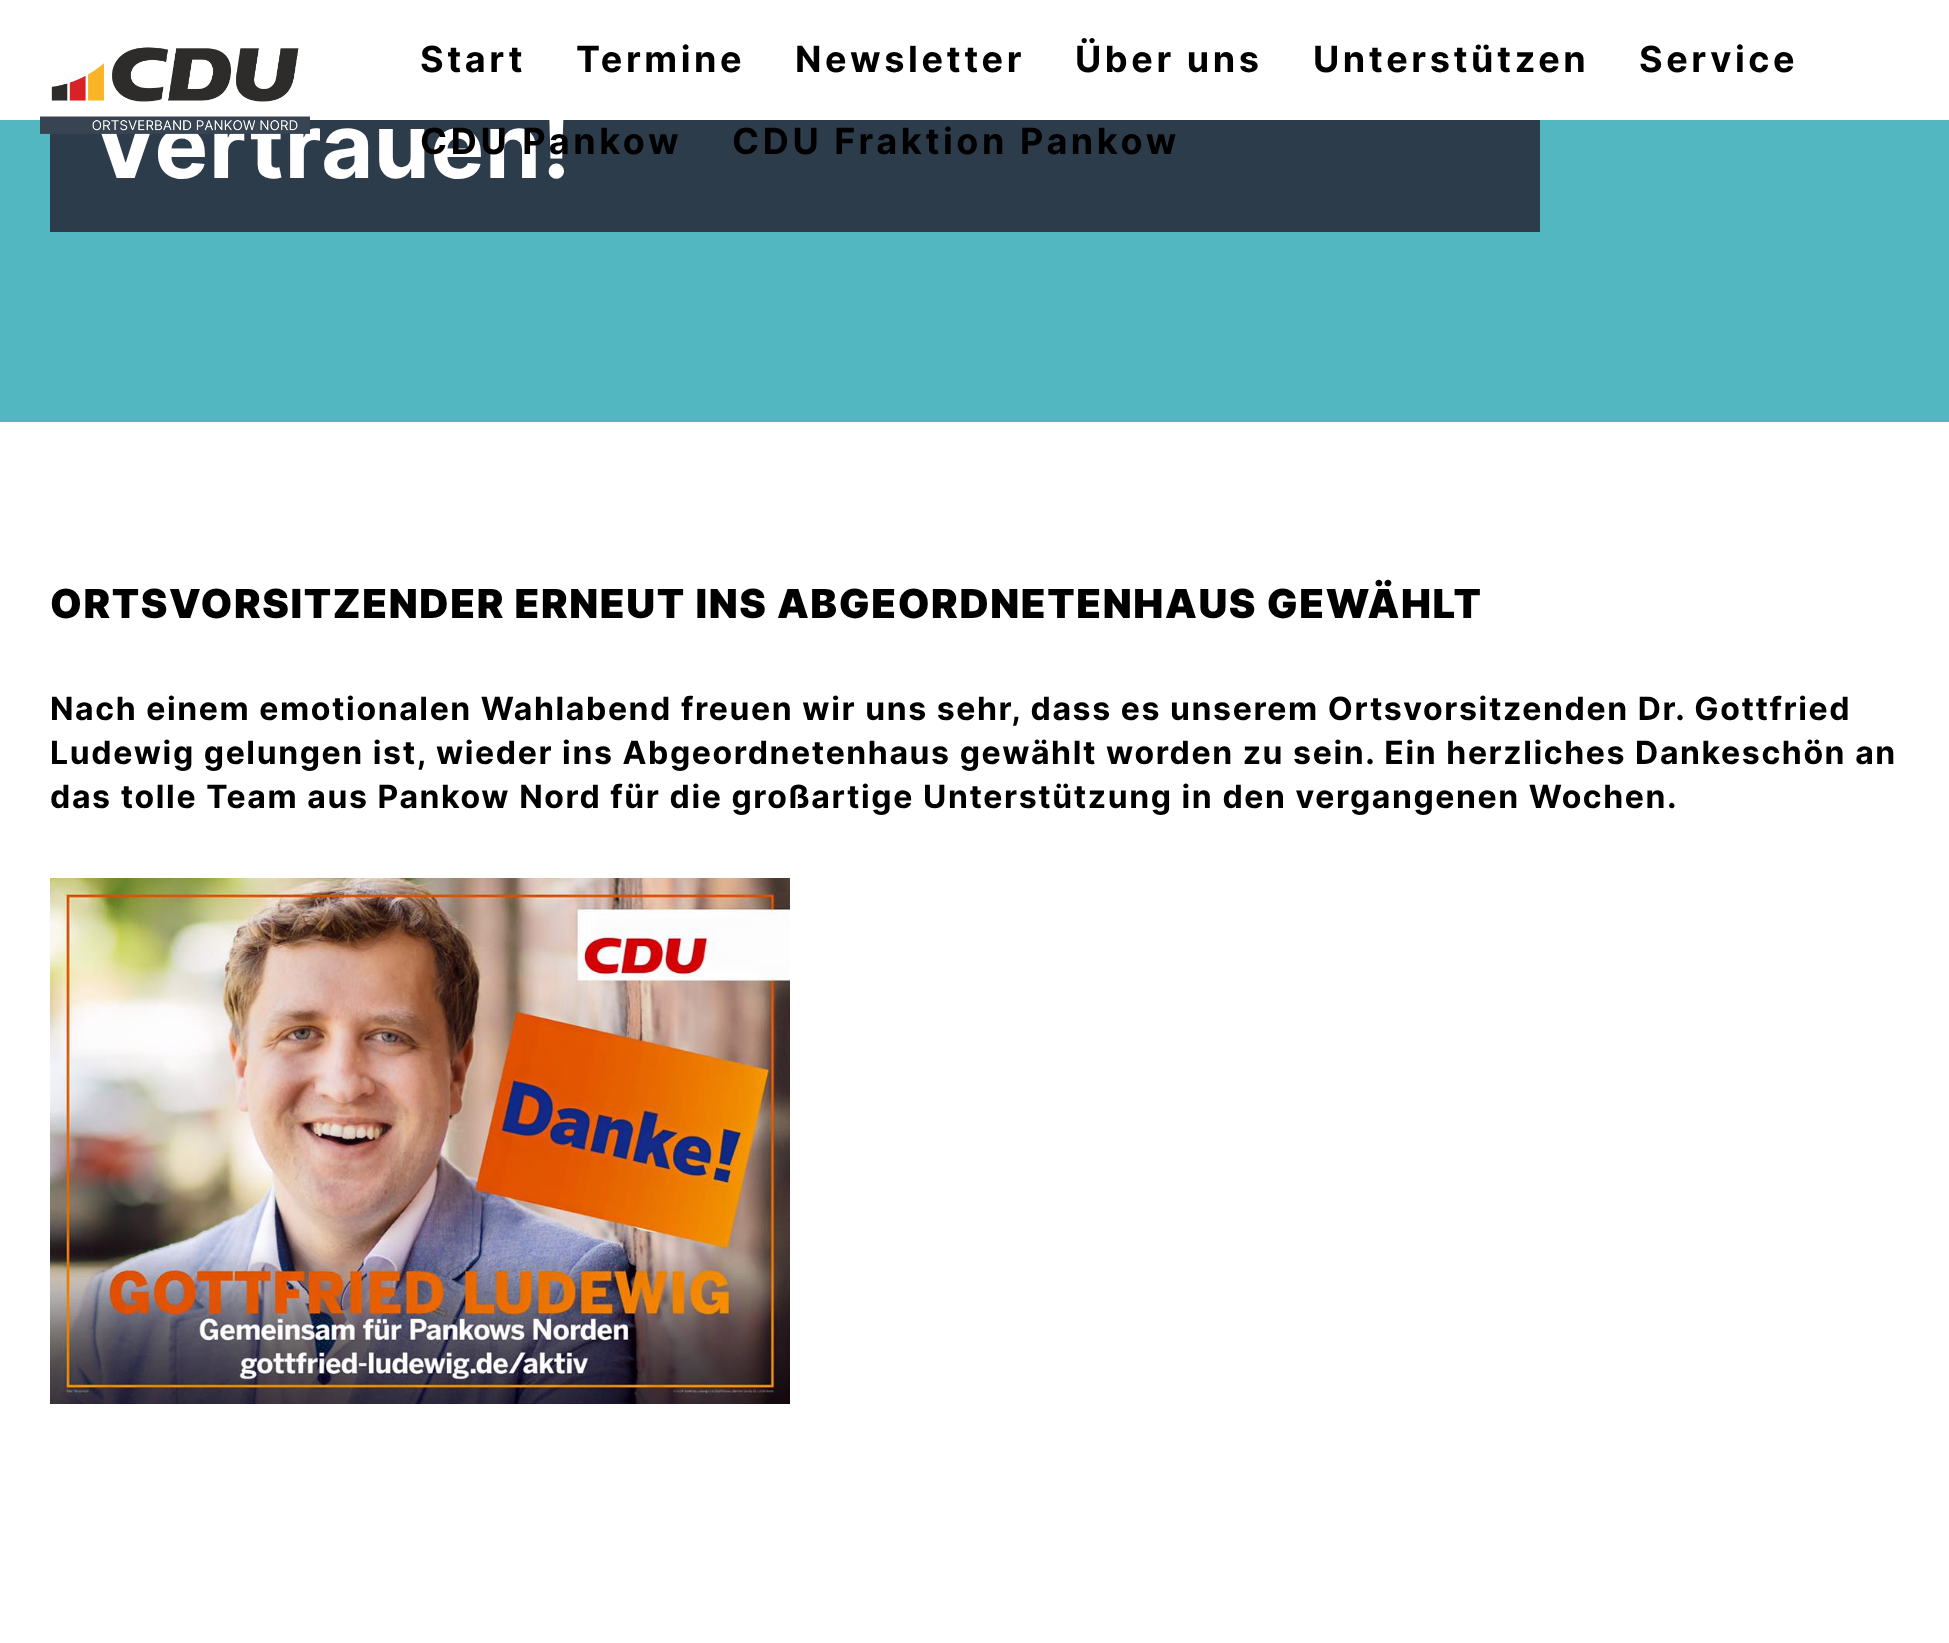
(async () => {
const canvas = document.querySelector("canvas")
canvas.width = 1949
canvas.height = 1643
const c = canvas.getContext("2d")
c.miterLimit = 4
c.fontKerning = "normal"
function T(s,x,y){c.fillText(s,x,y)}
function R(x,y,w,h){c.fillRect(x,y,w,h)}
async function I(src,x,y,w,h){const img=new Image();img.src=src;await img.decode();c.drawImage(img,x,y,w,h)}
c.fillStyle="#fff"
R(0,0,1949,1643)
c.fillStyle="#52b7c1"
R(0,120,1949,302)
c.fillStyle="#2d3c4b"
R(50,120,1490,112)
c.letterSpacing="0.75px"
c.font="bold 90px Inter"
c.fillStyle="#fff"
T("Vertrauen!",92,178)
await I("1.png",40,47,270,87)
c.letterSpacing="3.6px"
c.font="bold 36px Inter"
c.fillStyle="#000"
T("Start",420,72)
T("Termine",576,72)
T("Newsletter",795,72)
T("Über uns",1075,72)
T("Unterstützen",1313,72)
T("Service",1639,72)
T("CDU Pankow",420,154)
T("CDU Fraktion Pankow",732,154)
c.letterSpacing="1.6px"
c.font="900 40px Inter"
T("ORTSVORSITZENDER ERNEUT INS ABGEORDNETENHAUS GEWÄHLT",50,618)
c.font="bold 32px Inter"
T("Nach einem emotionalen Wahlabend freuen wir uns sehr, dass es unserem Ortsvorsitzenden Dr. Gottfried",50,720)
T("Ludewig gelungen ist, wieder ins Abgeordnetenhaus gewählt worden zu sein. Ein herzliches Dankeschön an",50,764)
T("das tolle Team aus Pankow Nord für die großartige Unterstützung in den vergangenen Wochen.",50,808)
await I("2.png",50,878,740,526)
})()
